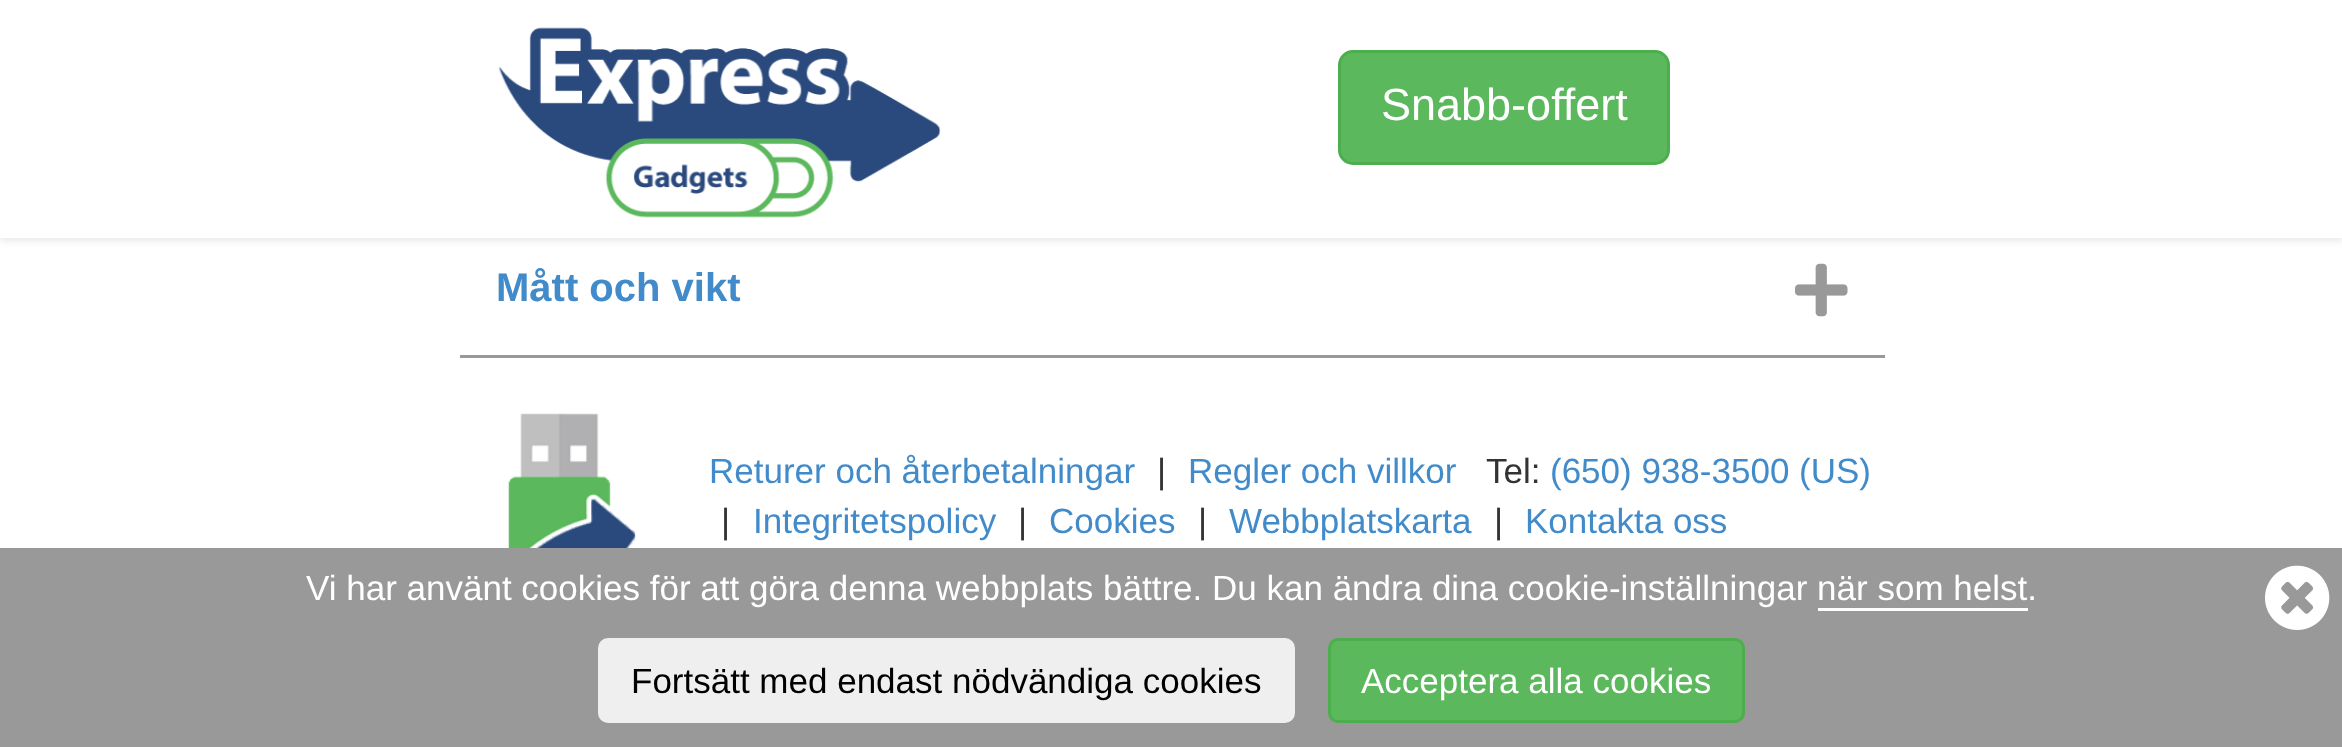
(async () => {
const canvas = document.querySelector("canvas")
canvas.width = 2342
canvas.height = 747
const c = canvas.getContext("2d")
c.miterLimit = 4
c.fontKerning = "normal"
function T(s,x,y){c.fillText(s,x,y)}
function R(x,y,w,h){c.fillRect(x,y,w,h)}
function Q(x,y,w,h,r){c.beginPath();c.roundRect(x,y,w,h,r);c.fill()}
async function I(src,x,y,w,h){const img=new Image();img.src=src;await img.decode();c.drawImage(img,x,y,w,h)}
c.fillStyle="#fff"
R(0,0,2342,747)
c.fillStyle="#0000001c"
c.filter="blur(4px)"
c.beginPath()
c.rect(0,3,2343,237)
c.fill()
c.filter="none"
c.fillStyle="#fff"
R(0,0,2342,238)
await I("1.png",498,27,443,191)
c.fillStyle="#5cb85c"
c.beginPath()
c.roundRect(1339.5,51.5,329,112,13.5)
c.fill()
c.strokeStyle="#4cae4c"
c.lineWidth=3
c.stroke()
c.font="45px Liberation Sans"
c.fillStyle="#fff"
T("Snabb-offert",1381,120)
c.fillStyle="#999"
R(460,355,1425,3)
c.font="bold 40px Liberation Sans"
c.fillStyle="#428bca"
T("Mått och vikt",496,301)
await I("2.png",1795,263,53,54)
await I("3.png",507,413,129,135)
c.font="35px Liberation Sans"
T("Returer och återbetalningar",709,483)
c.fillStyle="#333"
T("|",1157,483)
c.fillStyle="#428bca"
T("Regler och villkor",1188,483)
c.fillStyle="#333"
T("|",721,533)
c.fillStyle="#428bca"
T("Integritetspolicy",753,533)
c.fillStyle="#333"
T("|",1018,533)
c.fillStyle="#428bca"
T("Cookies",1049,533)
c.fillStyle="#333"
T("|",1198,533)
c.fillStyle="#428bca"
T("Webbplatskarta",1229,533)
c.fillStyle="#333"
T("|",1494,533)
c.fillStyle="#428bca"
T("Kontakta oss",1525,533)
c.fillStyle="#333"
T("Tel:",1486,483)
c.fillStyle="#428bca"
T("(650) 938-3500 (US)",1550,483)
c.fillStyle="#999"
R(0,548,2342,199)
c.fillStyle="#fff"
T("Vi har använt cookies för att göra denna webbplats bättre. Du kan ändra dina cookie-inställningar när som helst.",306,600)
R(1818,608,210,3)
await I("4.png",2265,565,65,65)
c.fillStyle="#efefef"
Q(598,638,697,85,10)
c.fillStyle="#000"
T("Fortsätt med endast nödvändiga cookies",631,693)
c.fillStyle="#5cb85c"
c.beginPath()
c.roundRect(1329.5,639.5,414,82,8.5)
c.fill()
c.stroke()
c.fillStyle="#fff"
T("Acceptera alla cookies",1361,693)
})()
